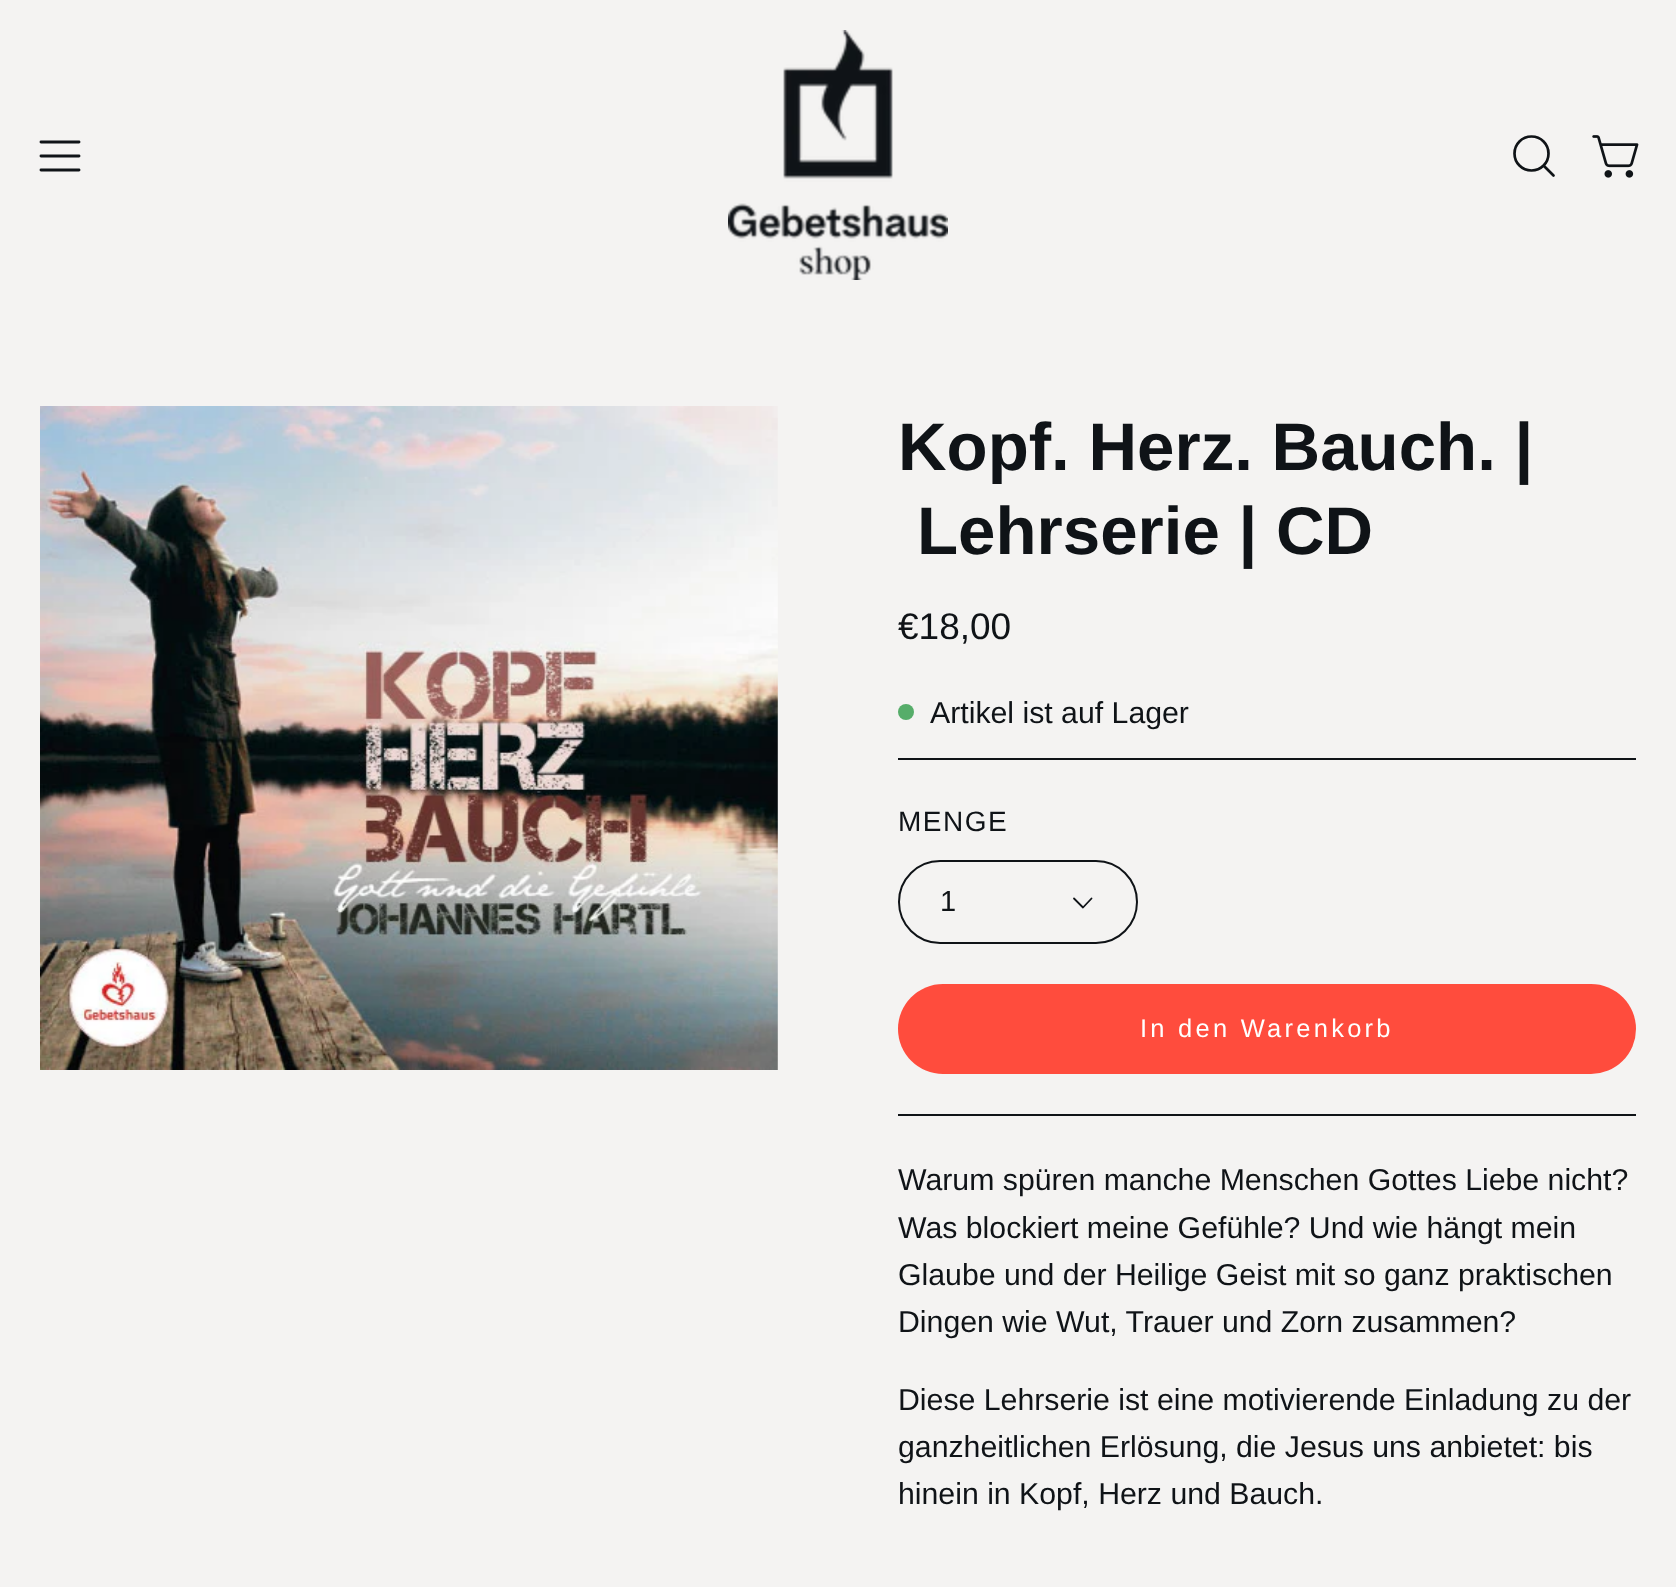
(async () => {
const canvas = document.querySelector("canvas")
canvas.width = 1676
canvas.height = 1587
const c = canvas.getContext("2d")
c.miterLimit = 4
c.fontKerning = "normal"
function T(s,x,y){c.fillText(s,x,y)}
function R(x,y,w,h){c.fillRect(x,y,w,h)}
function Q(x,y,w,h,r){c.beginPath();c.roundRect(x,y,w,h,r);c.fill()}
async function I(src,x,y,w,h){const img=new Image();img.src=src;await img.decode();c.drawImage(img,x,y,w,h)}
let path
c.fillStyle="#f4f3f2"
R(0,0,1676,1587)
path = new Path2D("M41 156h38m-38-14h38m-38 28h38")
c.strokeStyle="#0f1317"
c.lineWidth=2.9
c.lineCap="round"
c.lineJoin="round"
c.stroke(path)
await I("1.png",728,30,220,250)
path = new Path2D("M1531.5 170.5c9.5 0 17-7.5 17-17c0-9.5-7.5-17-17-17c-9.5 0-17 7.5-17 17c0 9.5 7.5 17 17 17zm12-5l10 10")
c.lineWidth=2.7
c.stroke(path)
await I("2.png",1592,135,47,43)
await I("3.png",40,406,738,664)
c.font="bold 67.25px Liberation Sans"
c.fillStyle="#0f1317"
T("Kopf. Herz. Bauch. |",898,470)
T("Lehrserie | CD",917,554)
c.font="37px Liberation Sans"
T("€18,00",898,639)
c.fillStyle="#56ad6a"
c.beginPath()
c.arc(906,712,8,0,7)
c.fill()
c.font="30.25px Liberation Sans"
c.fillStyle="#0f1317"
T("Artikel ist auf Lager",930,723)
R(898,758,738,2)
c.letterSpacing="1.5px"
c.font="28px Liberation Sans"
T("MENGE",898,831)
c.beginPath()
c.roundRect(899,861,238,82,41)
c.lineWidth=2
c.lineJoin="miter"
c.stroke()
c.letterSpacing="1px"
c.font="29px Liberation Sans"
T("1",940,911)
path = new Path2D("M1091.5 898.5l-8.5 9l-9-9")
c.lineWidth=1.8
c.lineJoin="round"
c.stroke(path)
c.fillStyle="#ff4c3d"
Q(898,984,738,90,45)
c.letterSpacing="3.25px"
c.font="25.5px Liberation Sans"
c.fillStyle="#fff"
T("In den Warenkorb",1140,1037)
c.fillStyle="#0f1317"
R(898,1114,738,2)
c.letterSpacing="0px"
c.font="30.25px Liberation Sans"
T("Warum spüren manche Menschen Gottes Liebe nicht?",898,1190)
T("Was blockiert meine Gefühle? Und wie hängt mein",898,1238)
T("Glaube und der Heilige Geist mit so ganz praktischen",898,1285)
T("Dingen wie Wut, Trauer und Zorn zusammen?",898,1332)
T("Diese Lehrserie ist eine motivierende Einladung zu der",898,1410)
T("ganzheitlichen Erlösung, die Jesus uns anbietet: bis",898,1457)
T("hinein in Kopf, Herz und Bauch.",898,1504)
})()
